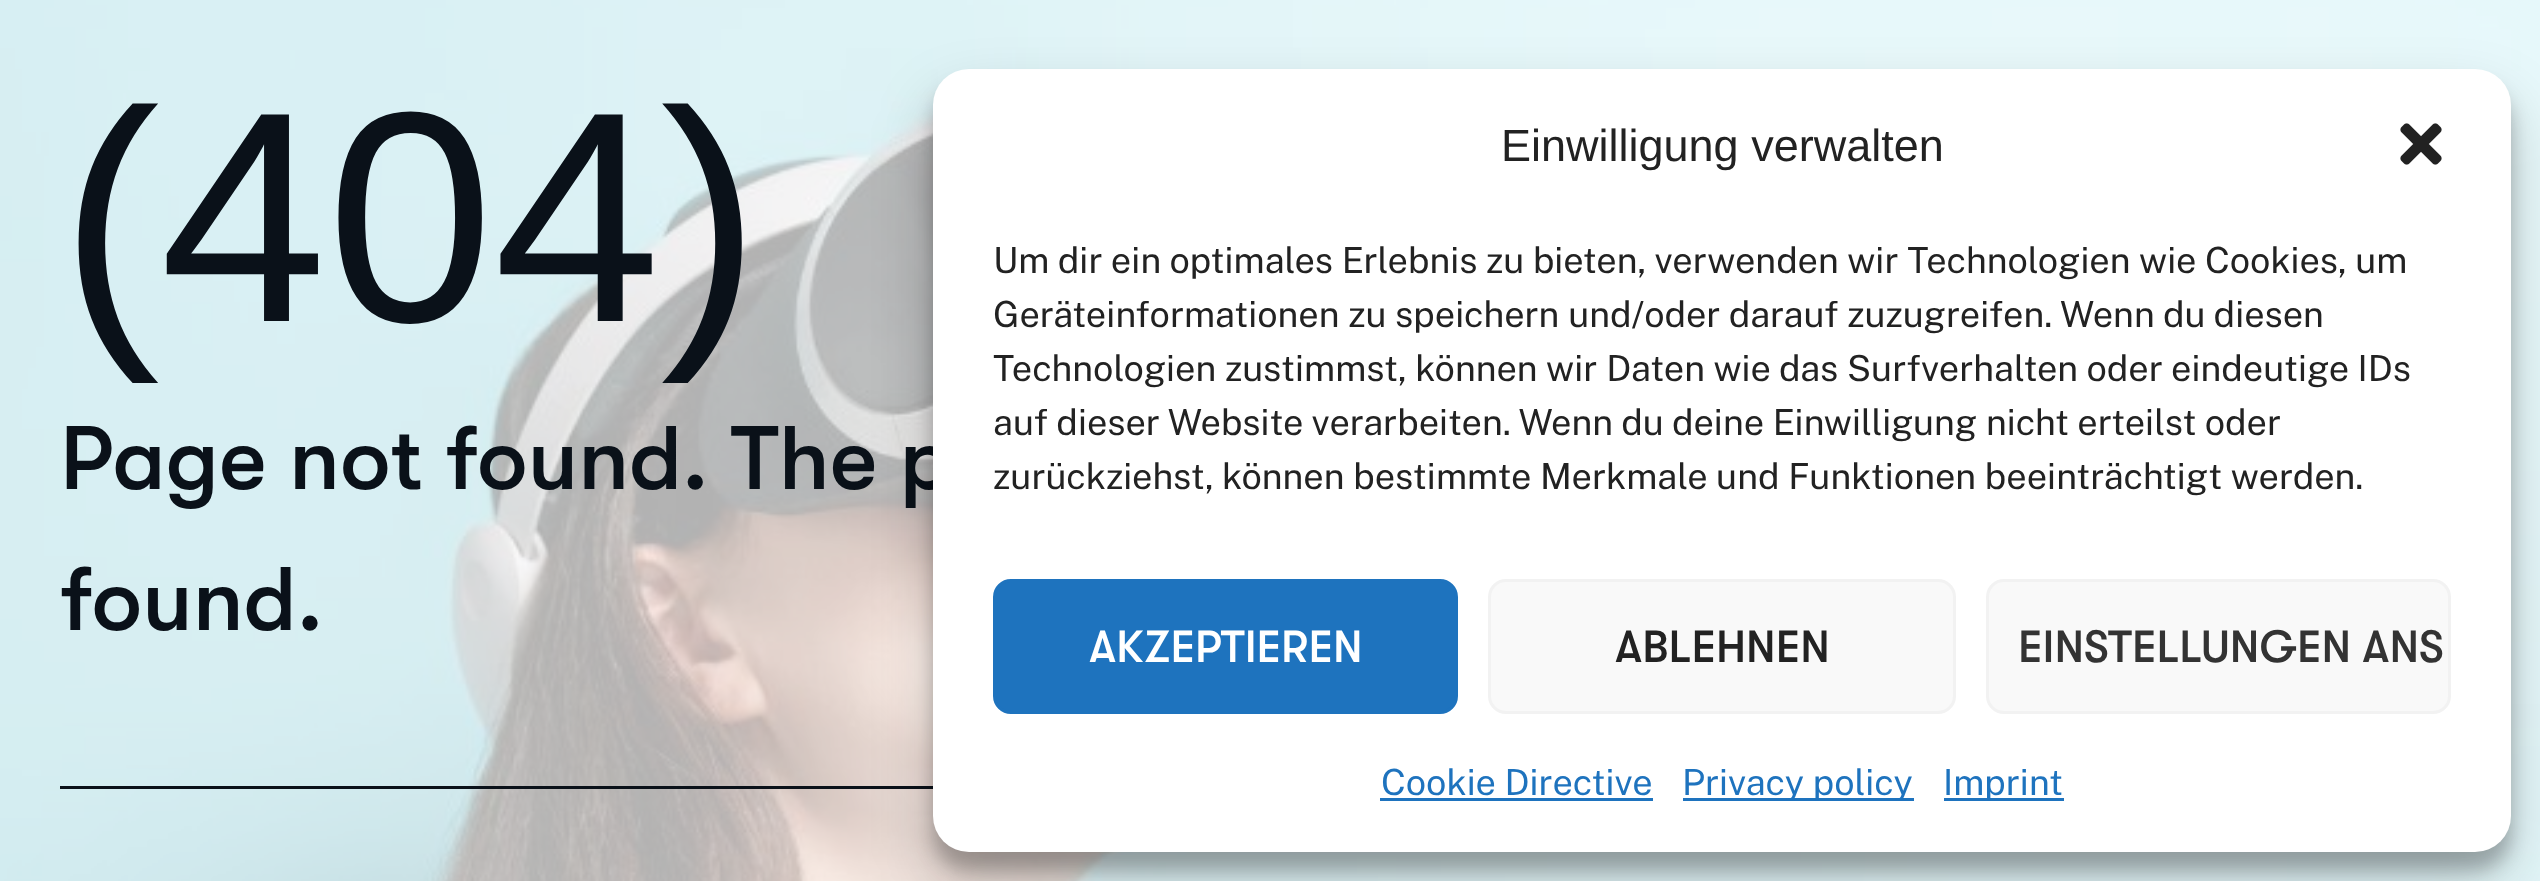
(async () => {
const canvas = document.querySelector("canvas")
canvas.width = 2540
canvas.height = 881
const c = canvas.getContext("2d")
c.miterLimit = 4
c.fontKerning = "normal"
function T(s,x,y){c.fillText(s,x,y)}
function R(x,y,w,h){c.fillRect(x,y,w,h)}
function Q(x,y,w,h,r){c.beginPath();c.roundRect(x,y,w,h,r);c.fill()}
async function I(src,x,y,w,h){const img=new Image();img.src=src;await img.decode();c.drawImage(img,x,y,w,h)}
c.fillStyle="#fff"
R(0,0,2540,881)
await I("1.png",0,0,2540,881)
c.font="300px Liberation Sans"
c.fillStyle="#0a1119"
T("(404)",60,321)
c.font="500 90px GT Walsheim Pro"
T("Page not found. The p",60,489)
T("found.",60,630)
R(60,786,873,3)
c.fillStyle="#0000003b"
c.filter="blur(9px)"
c.beginPath()
c.roundRect(933,87,1578,783,36)
c.fill()
c.filter="none"
c.fillStyle="#00000030"
c.filter="blur(30px)"
c.beginPath()
c.roundRect(933,99,1578,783,36)
c.fill()
c.filter="none"
c.fillStyle="#fff"
Q(933,69,1578,783,36)
c.font="45px Liberation Sans"
c.fillStyle="#222"
T("Einwilligung verwalten",1501,161)
await I("2.png",2400,123,42,42)
c.font="36px Public Sans"
T("Um dir ein optimales Erlebnis zu bieten, verwenden wir Technologien wie Cookies, um",993,273)
T("Geräteinformationen zu speichern und/oder darauf zuzugreifen. Wenn du diesen",993,327)
T("Technologien zustimmst, können wir Daten wie das Surfverhalten oder eindeutige IDs",993,381)
T("auf dieser Website verarbeiten. Wenn du deine Einwilligung nicht erteilst oder",993,435)
T("zurückziehst, können bestimmte Merkmale und Funktionen beeinträchtigt werden.",993,489)
c.fillStyle="#1e73be"
c.beginPath()
c.roundRect(994.5,580.5,462,132,16.5)
c.fill()
c.strokeStyle="#1e73be"
c.lineWidth=3
c.stroke()
c.font="500 45px GT Walsheim Pro"
c.fillStyle="#fff"
T("AKZEPTIEREN",1089,662)
c.fillStyle="#f9f9f9"
c.beginPath()
c.roundRect(1489.5,580.5,465,132,16.5)
c.fill()
c.strokeStyle="#f2f2f2"
c.stroke()
c.fillStyle="#222"
T("ABLEHNEN",1615,662)
c.fillStyle="#f9f9f9"
c.beginPath()
c.roundRect(1987.5,580.5,462,132,16.5)
c.fill()
c.stroke()
c.fillStyle="#333"
T("EINSTELLUNGEN ANS",2018,662)
c.font="36px Public Sans"
c.fillStyle="#1e73be"
T("Cookie Directive",1381,795)
R(1380,798,273,3)
R(1683,798,231,3)
T("Privacy policy",1682,795)
R(1944,798,120,3)
T("Imprint",1943,795)
})()
